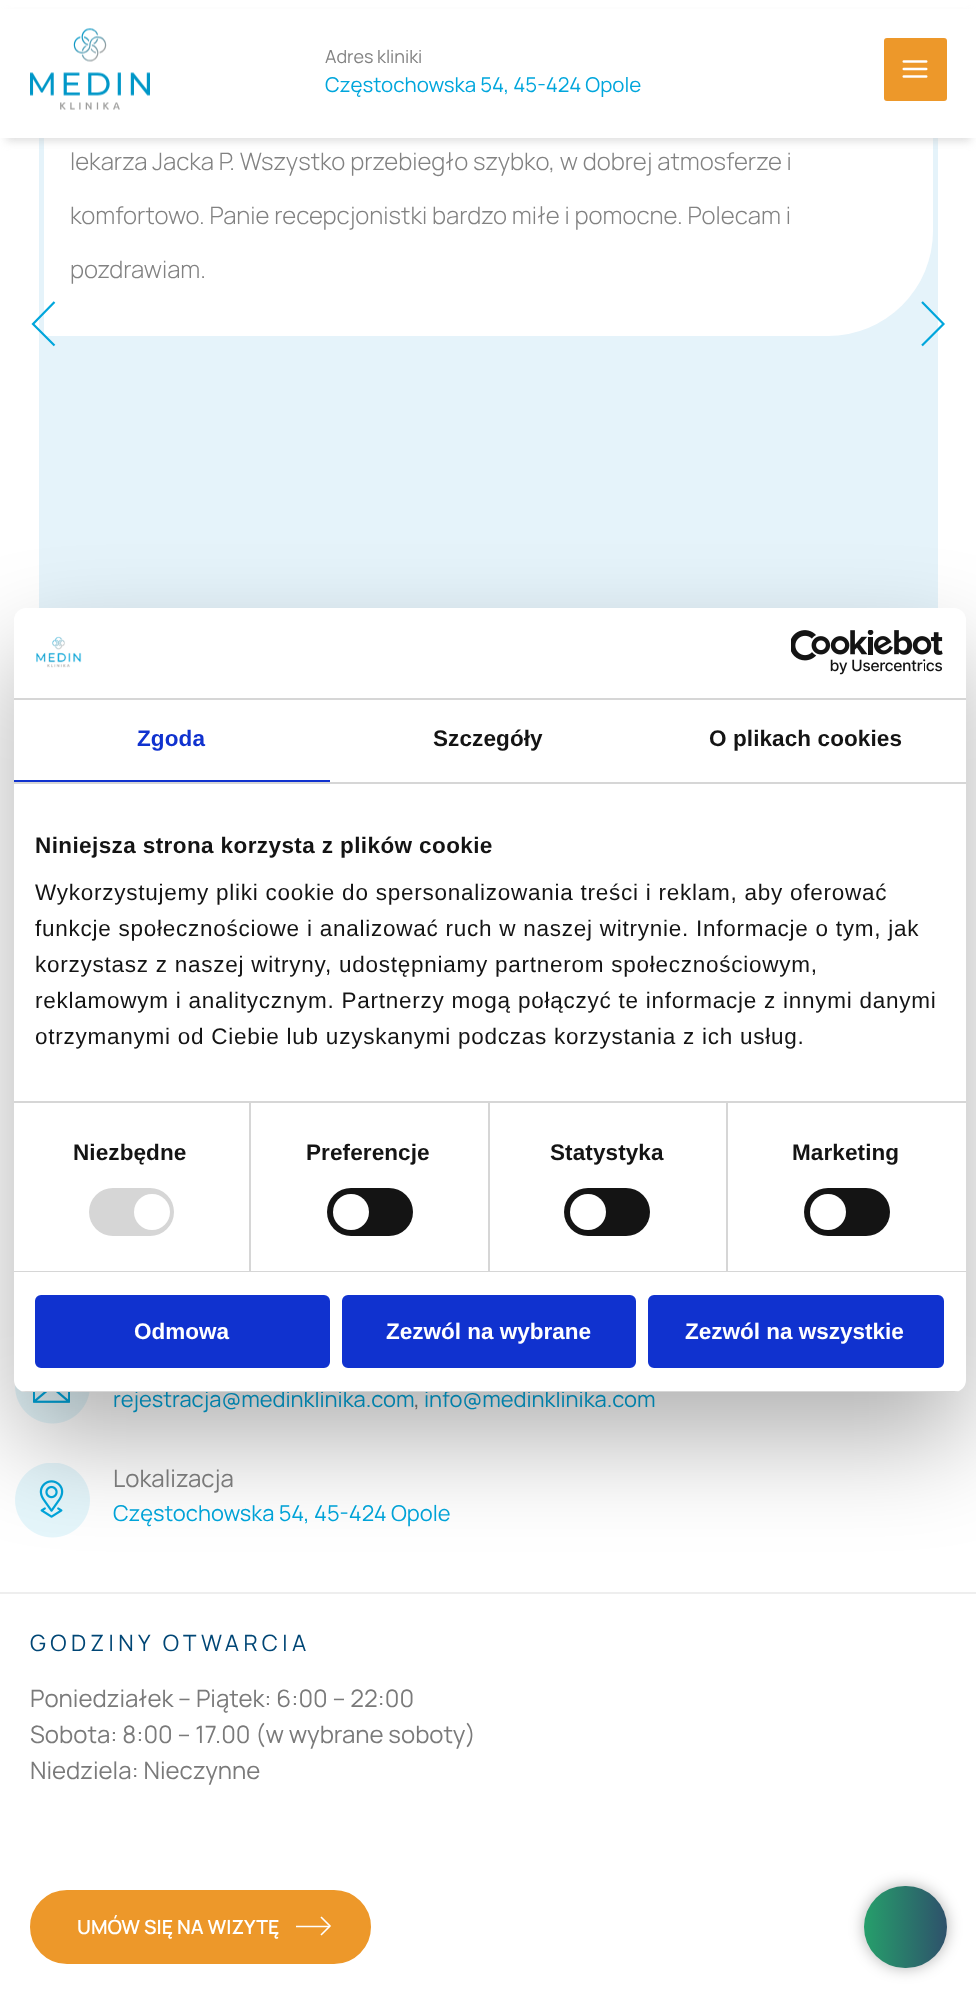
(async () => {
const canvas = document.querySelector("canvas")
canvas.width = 976
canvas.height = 1997
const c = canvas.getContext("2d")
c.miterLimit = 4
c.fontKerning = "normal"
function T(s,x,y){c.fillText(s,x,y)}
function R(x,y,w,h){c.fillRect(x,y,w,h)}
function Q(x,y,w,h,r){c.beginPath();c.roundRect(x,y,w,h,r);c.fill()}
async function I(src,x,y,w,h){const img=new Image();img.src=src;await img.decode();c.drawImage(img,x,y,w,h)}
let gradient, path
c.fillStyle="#fff"
R(0,0,976,1997)
c.fillStyle="#e5f3fa"
R(39,138,899,470)
c.fillStyle="#fff"
c.beginPath()
c.roundRect(44,71,889,265,[0,0,105,0])
c.fill()
c.fillStyle="#bebebe85"
c.filter="blur(4.5px)"
c.beginPath()
c.rect(6,15,965,126)
c.fill()
c.filter="none"
c.fillStyle="#fff"
R(0,9,976,129)
await I("1.png",30,28,120,82)
c.font="18px Manrope"
c.fillStyle="#828282"
T("Adres kliniki",325,63)
c.font="20.5px Manrope"
c.fillStyle="#00a6dc"
T("Częstochowska 54, 45-424 Opole",325,92)
c.fillStyle="#ed982a"
Q(884,38,63,63,3)
await I("2.png",902,60,26,18)
c.font="300 24px Manrope"
c.fillStyle="#828282"
T("lekarza Jacka P. Wszystko przebiegło szybko, w dobrej atmosferze i",70,170)
T("komfortowo. Panie recepcjonistki bardzo miłe i pomocne. Polecam i",70,224)
T("pozdrawiam.",70,278)
path = new Path2D("M54.5 302l-21.5 22l21.5 21.5")
c.strokeStyle="#00a6dc"
c.lineWidth=2.2
c.stroke(path)
path = new Path2D("M922 345.5l21.5-21.5l-21.5-22")
c.stroke(path)
c.fillStyle="#eee"
R(0,1592,976,2)
await I("3.png",15,1384,75,40)
c.font="21.9px Manrope"
c.fillStyle="#00a6dc"
T("rejestracja@medinklinika.com",113,1407)
c.fillStyle="#7a7a7a"
T(",",414,1407)
c.fillStyle="#00a6dc"
T("info@medinklinika.com",424,1407)
await I("4.png",15,1463,75,75)
c.font="24px Manrope"
c.fillStyle="#828282"
T("Lokalizacja",113,1487)
c.font="21.9px Manrope"
c.fillStyle="#00a6dc"
T("Częstochowska 54, 45-424 Opole",113,1521)
c.letterSpacing="4.4px"
c.font="22.5px Manrope"
c.fillStyle="#004675"
T("GODZINY OTWARCIA",30,1651)
c.letterSpacing="0px"
c.font="24px Manrope"
c.fillStyle="#7a7a7a"
T("Poniedziałek – Piątek: 6:00 – 22:00",30,1707)
T("Sobota: 8:00 – 17.00 (w wybrane soboty)",30,1743)
T("Niedziela: Nieczynne",30,1779)
c.fillStyle="#ed982a"
c.beginPath()
c.roundRect(31,1891,339,72,36)
c.fill()
c.strokeStyle="#ed982a"
c.lineWidth=2
c.stroke()
c.font="600 19.5px Manrope"
c.fillStyle="#fff"
T("UMÓW SIĘ NA WIZYTĘ",77,1934)
path = new Path2D("M321 1917l9 9l-9 9")
c.strokeStyle="#fff"
c.lineWidth=1.6
c.stroke(path)
c.save()
c.beginPath()
c.rect(296,1910,37,34)
c.clip()
path = new Path2D("M329.5 1926.5h-34m34 0h-34")
c.stroke(path)
c.restore()
c.fillStyle="#0000004d"
c.filter="blur(51px)"
c.beginPath()
c.roundRect(14,656,952,784,12)
c.fill()
c.filter="none"
c.fillStyle="#fff"
Q(14,608,952,784,12)
c.fillStyle="#d6d6d6"
R(14,698,952,2)
await I("5.png",36,636,46,32)
await I("6.png",791,630,152,45)
R(14,782,952,2)
c.fillStyle="#1032cf"
R(14,780,316,2)
c.letterSpacing="0.1px"
c.font="bold 22.5px Liberation Sans"
T("Zgoda",137,746)
c.fillStyle="#141414"
T("Szczegóły",433,746)
T("O plikach cookies",709,746)
c.fillStyle="#d6d6d6"
R(14,1101,952,2)
c.letterSpacing="0.4px"
c.fillStyle="#141414"
T("Niniejsza strona korzysta z plików cookie",35,853)
c.letterSpacing="0.75px"
c.font="22.5px Liberation Sans"
T("Wykorzystujemy pliki cookie do spersonalizowania treści i reklam, aby oferować",35,900)
T("funkcje społecznościowe i analizować ruch w naszej witrynie. Informacje o tym, jak",35,936)
T("korzystasz z naszej witryny, udostępniamy partnerom społecznościowym,",35,972)
T("reklamowym i analitycznym. Partnerzy mogą połączyć te informacje z innymi danymi",35,1008)
T("otrzymanymi od Ciebie lub uzyskanymi podczas korzystania z ich usług.",35,1044)
c.fillStyle="#d6d6d6"
R(14,1271,952,1)
R(249,1103,2,168)
c.letterSpacing="0.1px"
c.font="bold 22.5px Liberation Sans"
c.fillStyle="#141414"
T("Niezbędne",73,1160)
c.fillStyle="#d6d6d6"
Q(89,1188,85,48,24)
c.fillStyle="#fff"
c.beginPath()
c.arc(152,1212,18,0,7)
c.fill()
c.fillStyle="#d6d6d6"
R(488,1103,2,168)
c.fillStyle="#141414"
T("Preferencje",306,1160)
Q(327,1188,86,48,24)
c.fillStyle="#fff"
c.beginPath()
c.arc(351,1212,18,0,7)
c.fill()
c.fillStyle="#d6d6d6"
R(726,1103,2,168)
c.fillStyle="#141414"
T("Statystyka",550,1160)
Q(564,1188,86,48,24)
c.fillStyle="#fff"
c.beginPath()
c.arc(588,1212,18,0,7)
c.fill()
c.fillStyle="#141414"
T("Marketing",792,1160)
Q(804,1188,86,48,24)
c.fillStyle="#fff"
c.beginPath()
c.arc(828,1212,18,0,7)
c.fill()
c.save()
c.beginPath()
c.roundRect(14,608,952,784,12)
c.clip()
c.fillStyle="#d6d6d6"
R(14,1391,952,1)
c.restore()
c.fillStyle="#1032cf"
c.beginPath()
c.roundRect(36.5,1296.5,292,70,4.5)
c.fill()
c.strokeStyle="#1032cf"
c.lineWidth=3
c.stroke()
c.letterSpacing="0px"
c.fillStyle="#fff"
T("Odmowa",134,1339)
c.fillStyle="#1032cf"
c.beginPath()
c.roundRect(343.5,1296.5,291,70,4.5)
c.fill()
c.stroke()
c.fillStyle="#fff"
T("Zezwól na wybrane",386,1339)
c.fillStyle="#1032cf"
c.beginPath()
c.roundRect(649.5,1296.5,293,70,4.5)
c.fill()
c.stroke()
c.fillStyle="#fff"
T("Zezwól na wszystkie",685,1339)
c.fillStyle="#0000004d"
c.filter="blur(7.5px)"
c.beginPath()
c.roundRect(864,1886,83,82,41)
c.fill()
c.filter="none"
gradient = c.createLinearGradient(947,1927,864,1927)
gradient.addColorStop(0,"#2e516b")
gradient.addColorStop(1,"#269f6b")
c.fillStyle = gradient
Q(864,1886,83,82,41)
})()
